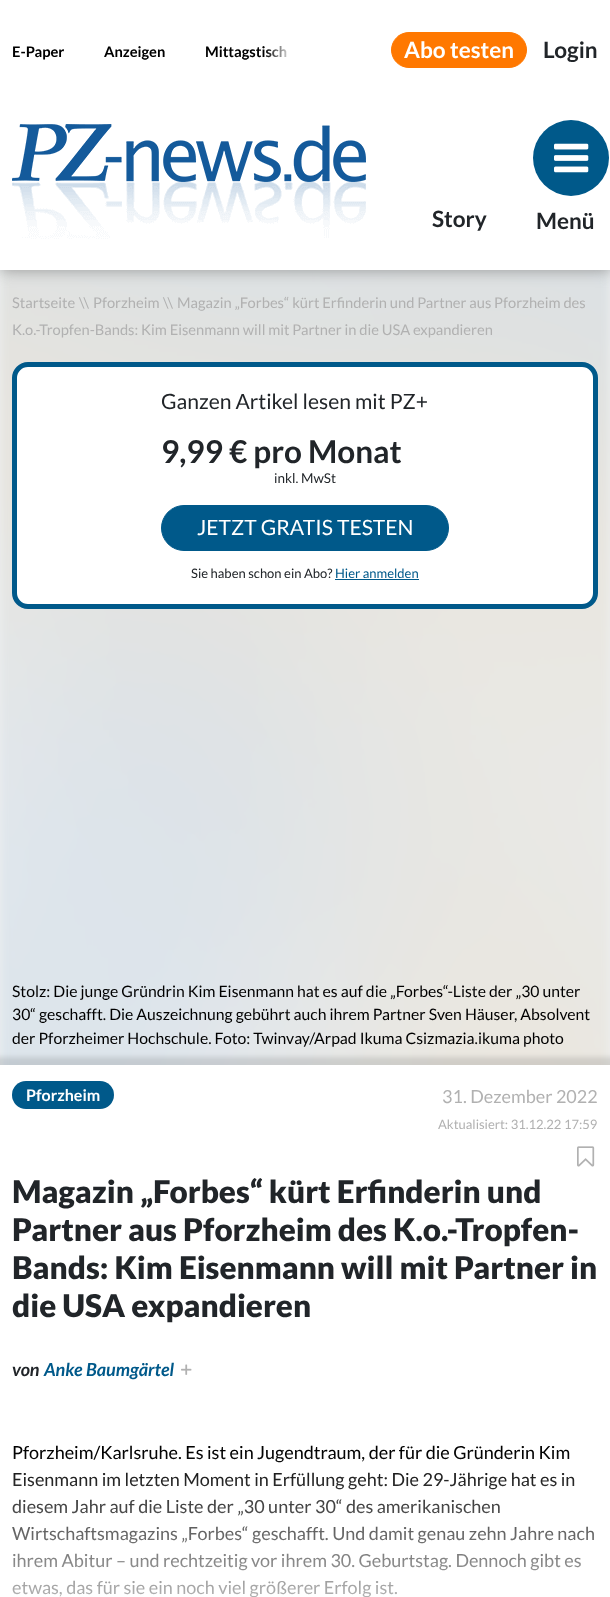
(async () => {
const canvas = document.querySelector("canvas")
canvas.width = 610
canvas.height = 1597
const c = canvas.getContext("2d")
c.miterLimit = 4
c.fontKerning = "normal"
function T(s,x,y){c.fillText(s,x,y)}
function R(x,y,w,h){c.fillRect(x,y,w,h)}
function Q(x,y,w,h,r){c.beginPath();c.roundRect(x,y,w,h,r);c.fill()}
async function I(src,x,y,w,h){const img=new Image();img.src=src;await img.decode();c.drawImage(img,x,y,w,h)}
let gradient
c.fillStyle="#edf0f2"
R(0,0,610,1597)
await I("3.png",0,270,610,795)
c.fillStyle="#959595"
c.filter="blur(7.5px)"
c.beginPath()
c.rect(1,0,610,270)
c.fill()
c.filter="none"
c.fillStyle="#fff"
R(0,0,610,270)
c.font="bold 14.7px Lato"
gradient = c.createLinearGradient(12,50,293,50)
gradient.addColorStop(.9,"#000")
gradient.addColorStop(1,"#fff")
c.fillStyle = gradient
T("E-Paper",12,57)
T("Anzeigen",104,57)
T("Mittagstisch",205,57)
c.fillStyle="#ff7800"
c.beginPath()
c.roundRect(391.5,32.5,135,35,17.5)
c.fill()
c.strokeStyle="#ff7800"
c.stroke()
c.font="bold 22.5px Lato"
c.fillStyle="#fff"
T("Abo testen",404,58)
c.fillStyle="#212529"
T("Login",543,58)
await I("1.png",12,124,354,115)
T("Story",432,227)
c.fillStyle="#00598a"
c.beginPath()
c.arc(571,158,38,0,7)
c.fill()
await I("2.png",554,143,35,30)
c.fillStyle="#212529"
T("Menü",536,229)
c.font="14.7px Lato"
c.fillStyle="#b1b1b1"
T("Startseite",12,308)
T("\\\\",79,308)
T("Pforzheim",93,308)
T("\\\\",163,308)
T("Magazin „Forbes“ kürt Erfinderin und Partner aus Pforzheim des",177,308)
T("K.o.-Tropfen-Bands: Kim Eisenmann will mit Partner in die USA expandieren",12,335)
c.fillStyle="#fff"
c.beginPath()
c.roundRect(14.5,364.5,581,242,13.5)
c.fill()
c.strokeStyle="#00598a"
c.lineWidth=5
c.stroke()
c.font="21.1px Lato"
c.fillStyle="#212529"
T("Ganzen Artikel lesen mit PZ+",161,409)
c.font="bold 31.5px Lato"
T("9,99 € pro Monat",161,463)
c.font="13.5px Lato"
T("inkl. MwSt",274,483)
c.fillStyle="#00598a"
c.beginPath()
c.roundRect(161.5,505.5,287,45,22.5)
c.fill()
c.lineWidth=1
c.stroke()
c.font="21.1px Lato"
c.fillStyle="#fff"
T("JETZT GRATIS TESTEN",197,535)
c.font="13px Lato"
c.fillStyle="#212529"
T("Sie haben schon ein Abo?",191,578)
c.fillStyle="#00598a"
T("Hier anmelden",335,578)
R(335,579,84,1)
c.font="15.75px Lato"
c.fillStyle="#000"
T("Stolz: Die junge Gründrin Kim Eisenmann hat es auf die „Forbes“-Liste der „30 unter",12,997)
T("30“ geschafft. Die Auszeichnung gebührt auch ihrem Partner Sven Häuser, Absolvent",12,1020)
T("der Pforzheimer Hochschule. Foto: Twinvay/Arpad Ikuma Csizmazia.ikuma photo",12,1044)
c.fillStyle="#0000001c"
c.filter="blur(2.5px)"
c.beginPath()
c.rect(-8,1057,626,374)
c.fill()
c.filter="none"
c.fillStyle="#fff"
R(0,1065,610,532)
c.fillStyle="#00598a"
Q(12,1081,102,28,14)
c.font="bold 16px Lato"
c.fillStyle="#fff"
T("Pforzheim",26,1101)
c.font="18px Lato"
c.fillStyle="#b1b1b1"
T("31. Dezember 2022",442,1103)
c.font="13px Lato"
T("Aktualisiert: 31.12.22 17:59",438,1129)
await I("4.png",577,1146,18,21)
c.font="900 31.4px Lato"
c.fillStyle="#212529"
T("Magazin „Forbes“ kürt Erfinderin und",12,1203)
T("Partner aus Pforzheim des K.o.-Tropfen-",12,1241)
T("Bands: Kim Eisenmann will mit Partner in",12,1279)
T("die USA expandieren",12,1317)
c.font="italic bold 18px Lato"
T("von",12,1376)
c.fillStyle="#00598a"
T("Anke Baumgärtel",44,1376)
await I("5.png",181,1364,11,11)
c.font="18px Lato"
gradient = c.createLinearGradient(305,1439,305,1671)
gradient.addColorStop(.05,"#000")
gradient.addColorStop(.95,"#fff")
c.fillStyle = gradient
T("Pforzheim/Karlsruhe. Es ist ein Jugendtraum, der für die Gründerin Kim",12,1459)
T("Eisenmann im letzten Moment in Erfüllung geht: Die 29-Jährige hat es in",12,1486)
T("diesem Jahr auf die Liste der „30 unter 30“ des amerikanischen",12,1513)
T("Wirtschaftsmagazins „Forbes“ geschafft. Und damit genau zehn Jahre nach",12,1540)
T("ihrem Abitur – und rechtzeitig vor ihrem 30. Geburtstag. Dennoch gibt es",12,1567)
T("etwas, das für sie ein noch viel größerer Erfolg ist.",12,1594)
})()
